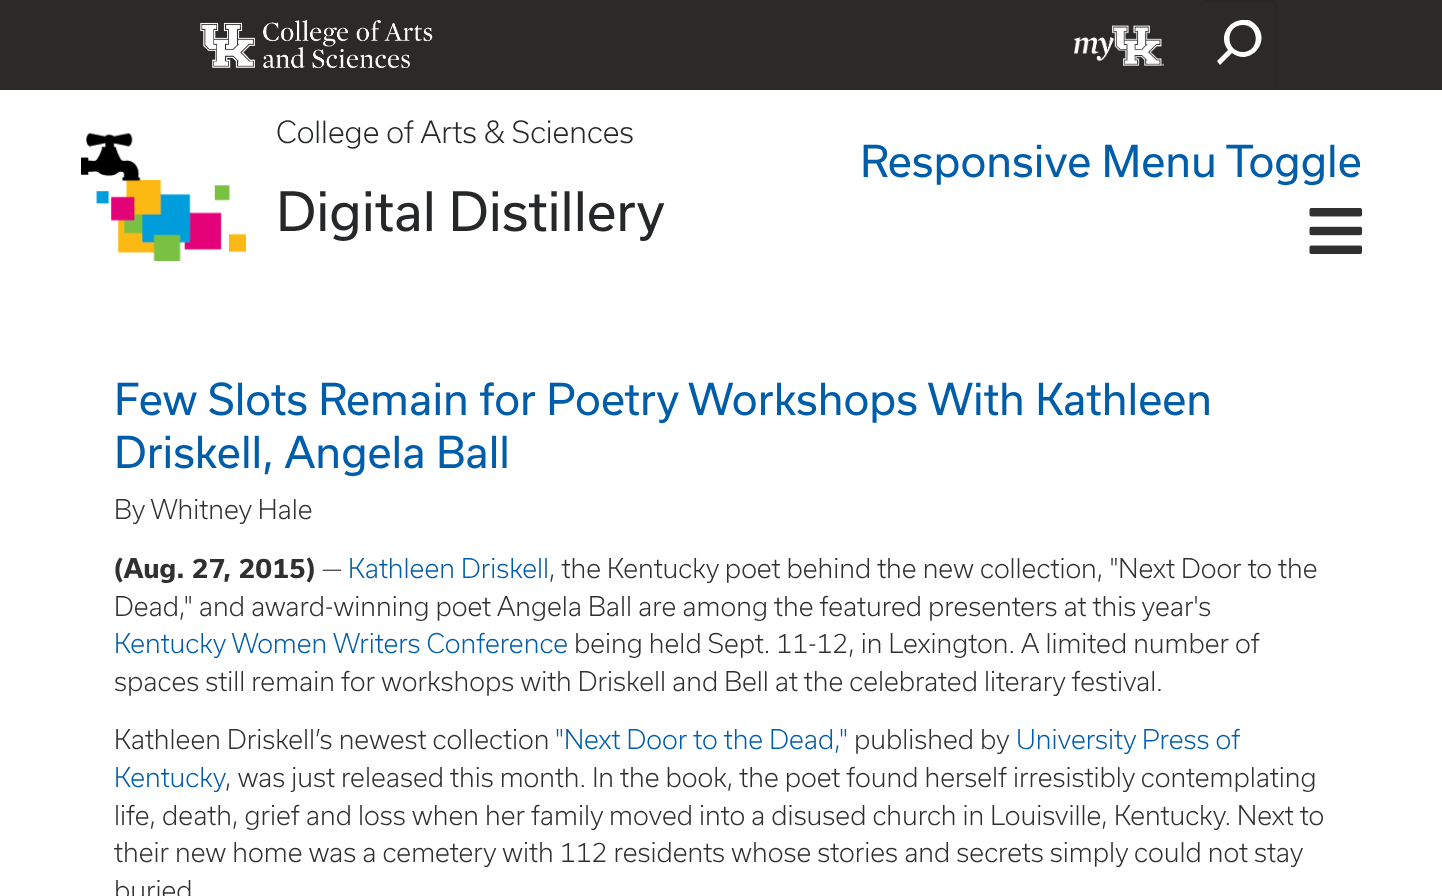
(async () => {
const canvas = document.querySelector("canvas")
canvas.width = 1442
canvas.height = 896
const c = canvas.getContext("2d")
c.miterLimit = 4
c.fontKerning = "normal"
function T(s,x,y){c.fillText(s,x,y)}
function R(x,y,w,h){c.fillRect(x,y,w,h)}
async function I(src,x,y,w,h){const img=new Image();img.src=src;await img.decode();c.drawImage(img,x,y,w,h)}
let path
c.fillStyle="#fff"
R(0,0,1442,896)
c.fillStyle="#2c2a29"
R(0,0,1442,90)
await I("1.png",200,20,233,48)
await I("2.png",1074,25,90,41)
c.fillStyle="#292726"
path = new Path2D("M1208 2h52c5 0 16-2 16 6v80c1-1 1-3 1-4v-78c0-3-3-6-6-6h-63c-3 0-6 3-6 6v2c0-4 2-6 6-6z")
c.fill(path)
c.save()
c.beginPath()
c.rect(1217,20,45,45)
c.clip()
c.fillStyle="#fff"
path = new Path2D("M1243 20c-15 0-25 18-15 30l-11 11l3 4l12-12c18 14 40-12 24-28c-4-4-8-6-13-6zm0 32c-18 0-18-27 0-27c17 0 17 27 0 27z")
c.fill(path)
c.restore()
await I("3.png",81,133,165,128)
c.font="300 29.2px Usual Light"
c.fillStyle="#252729"
T("College of Arts & Sciences",276,143)
c.font="51.75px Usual"
T("Digital Distillery",276,231)
c.font="42px Usual"
c.fillStyle="#005daa"
T("Responsive Menu Toggle",860,177)
await I("4.png",1309,208,53,46)
T("Few Slots Remain for Poetry Workshops With Kathleen",114,415)
T("Driskell, Angela Ball",114,468)
c.font="300 25.9px Usual Light"
c.fillStyle="#303030"
T("By Whitney Hale",114,519)
c.font="bold 25.9px Usual"
T("(Aug. 27, 2015)",114,578)
c.font="300 25.9px Usual Light"
T("—",322,578)
c.fillStyle="#005daa"
T("Kathleen Driskell",348,578)
c.fillStyle="#303030"
T(", the Kentucky poet behind the new collection, \"Next Door to the",549,578)
T("Dead,\" and award-winning poet Angela Ball are among the featured presenters at this year's",114,616)
c.fillStyle="#005daa"
T("Kentucky Women Writers Conference",114,653)
c.fillStyle="#303030"
T("being held Sept. 11-12, in Lexington. A limited number of",574,653)
T("spaces still remain for workshops with Driskell and Bell at the celebrated literary festival.",114,691)
T("Kathleen Driskell’s newest collection",114,749)
c.fillStyle="#005daa"
T("\"Next Door to the Dead,\"",555,749)
c.fillStyle="#303030"
T("published by",854,749)
c.fillStyle="#005daa"
T("University Press of",1016,749)
T("Kentucky",114,787)
c.fillStyle="#303030"
T(", was just released this month. In the book, the poet found herself irresistibly contemplating",225,787)
T("life, death, grief and loss when her family moved into a disused church in Louisville, Kentucky. Next to",114,825)
T("their new home was a cemetery with 112 residents whose stories and secrets simply could not stay",114,862)
T("buried",114,900)
})()
